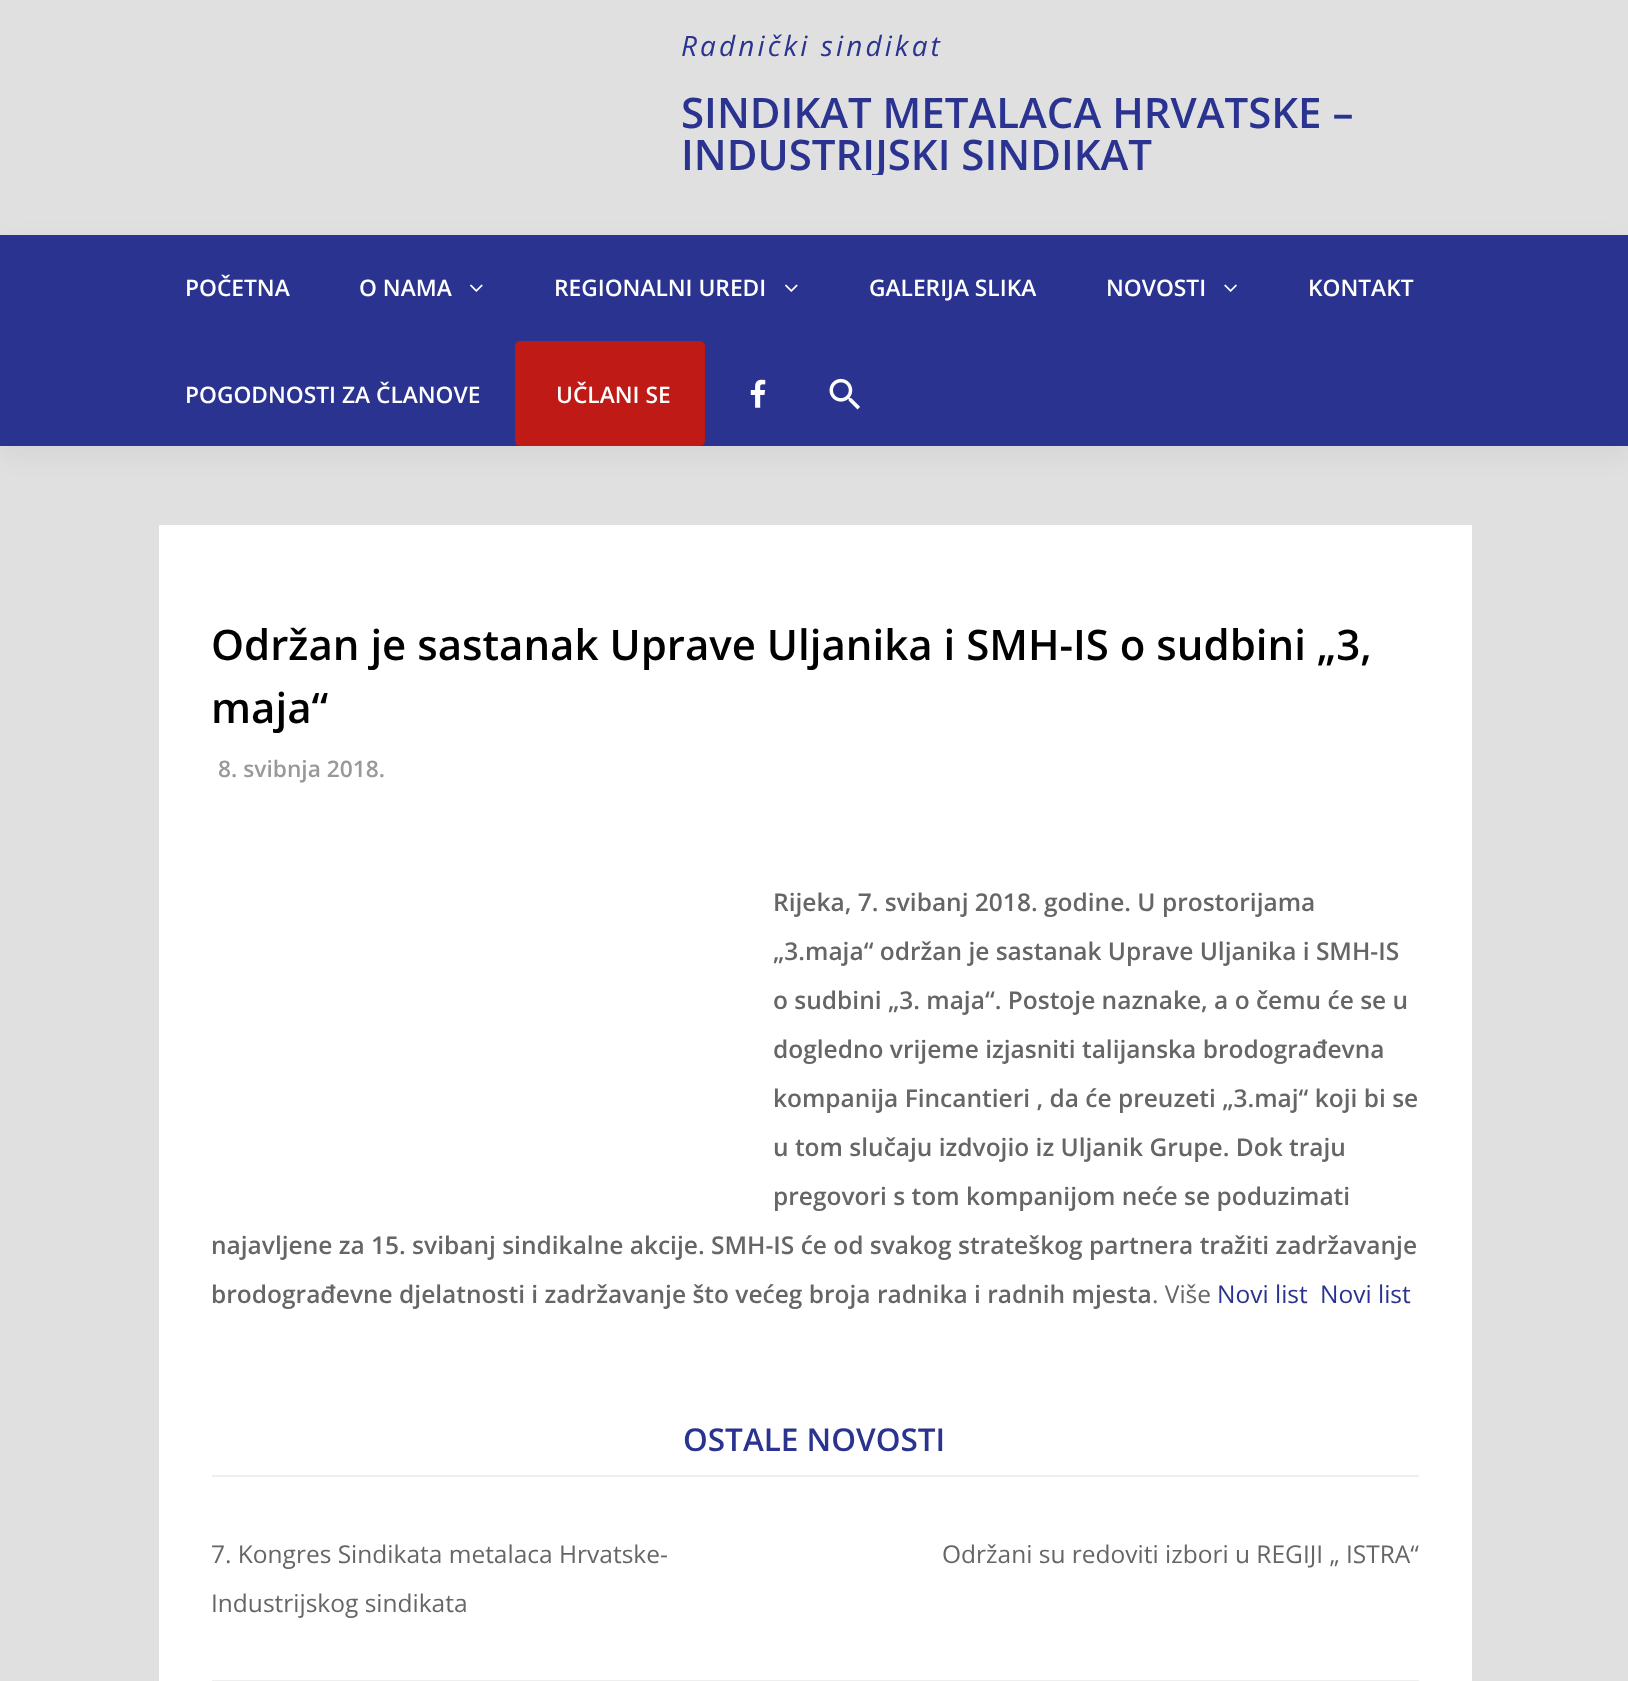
(async () => {
const canvas = document.querySelector("canvas")
canvas.width = 1628
canvas.height = 1681
const c = canvas.getContext("2d")
c.miterLimit = 4
c.fontKerning = "normal"
function T(s,x,y){c.fillText(s,x,y)}
function R(x,y,w,h){c.fillRect(x,y,w,h)}
function Q(x,y,w,h,r){c.beginPath();c.roundRect(x,y,w,h,r);c.fill()}
async function I(src,x,y,w,h){const img=new Image();img.src=src;await img.decode();c.drawImage(img,x,y,w,h)}
c.fillStyle="#e0e0e0"
R(0,0,1628,1681)
c.letterSpacing="3.1px"
c.font="italic 28px Open Sans"
c.fillStyle="#2a338f"
T("Radnički sindikat",681,56)
c.letterSpacing="0px"
c.font="600 42px Open Sans"
T("SINDIKAT METALACA HRVATSKE –",681,128)
c.save()
c.beginPath()
c.rect(681,18,765,157)
c.clip()
T("INDUSTRIJSKI SINDIKAT",681,170)
c.restore()
c.fillStyle="#0000000d"
c.filter="blur(13px)"
c.beginPath()
c.rect(0,243,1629,212)
c.fill()
c.filter="none"
c.fillStyle="#2a338f"
R(0,235,1628,211)
c.font="600 22.75px Open Sans"
c.fillStyle="#fff"
T("POČETNA",185,296)
T("O NAMA",359,296)
await I("1.png",470,284,13,8)
T("REGIONALNI UREDI",554,296)
await I("1.png",785,284,13,8)
T("GALERIJA SLIKA",869,296)
T("NOVOSTI",1106,296)
await I("2.png",1224,284,13,8)
T("KONTAKT",1308,296)
T("POGODNOSTI ZA ČLANOVE",185,403)
c.fillStyle="#bf1a16"
Q(515,341,190,105,5)
c.fillStyle="#fff"
T("UČLANI SE",556,403)
await I("3.png",750,379,16,29)
await I("4.png",829,378,31,32)
R(159,525,1313,1156)
c.font="600 42px Open Sans"
c.fillStyle="#000"
T("Održan je sastanak Uprave Uljanika i SMH-IS o sudbini „3,",211,660)
T("maja“",211,723)
c.font="600 22.75px Open Sans"
c.fillStyle="#999"
T("8. svibnja 2018.",218,777)
c.font="600 24.5px Open Sans"
c.fillStyle="#666"
T("Rijeka, 7. svibanj 2018. godine. U prostorijama",773,911)
T("„3.maja“ održan je sastanak Uprave Uljanika i SMH-IS",773,960)
T("o sudbini „3. maja“. Postoje naznake, a o čemu će se u",773,1009)
T("dogledno vrijeme izjasniti talijanska brodograđevna",773,1058)
T("kompanija Fincantieri , da će preuzeti „3.maj“ koji bi se",773,1107)
T("u tom slučaju izdvojio iz Uljanik Grupe. Dok traju",773,1156)
T("pregovori s tom kompanijom neće se poduzimati",773,1205)
T("najavljene za 15. svibanj sindikalne akcije. SMH-IS će od svakog strateškog partnera tražiti zadržavanje",211,1254)
T("brodograđevne djelatnosti i zadržavanje što većeg broja radnika i radnih mjesta",211,1303)
c.font="24.5px Open Sans"
T(". Više",1152,1303)
c.fillStyle="#2a338f"
T("Novi list",1217,1303)
T("Novi list",1320,1303)
c.font="600 31.5px Open Sans"
T("OSTALE NOVOSTI",683,1451)
c.fillStyle="#eee"
R(212,1475,1207,2)
R(212,1680,1207,1)
c.font="24.5px Open Sans"
c.fillStyle="#666"
T("7. Kongres Sindikata metalaca Hrvatske-",211,1563)
T("Industrijskog sindikata",211,1612)
T("Održani su redoviti izbori u REGIJI „ ISTRA“",942,1563)
})()
